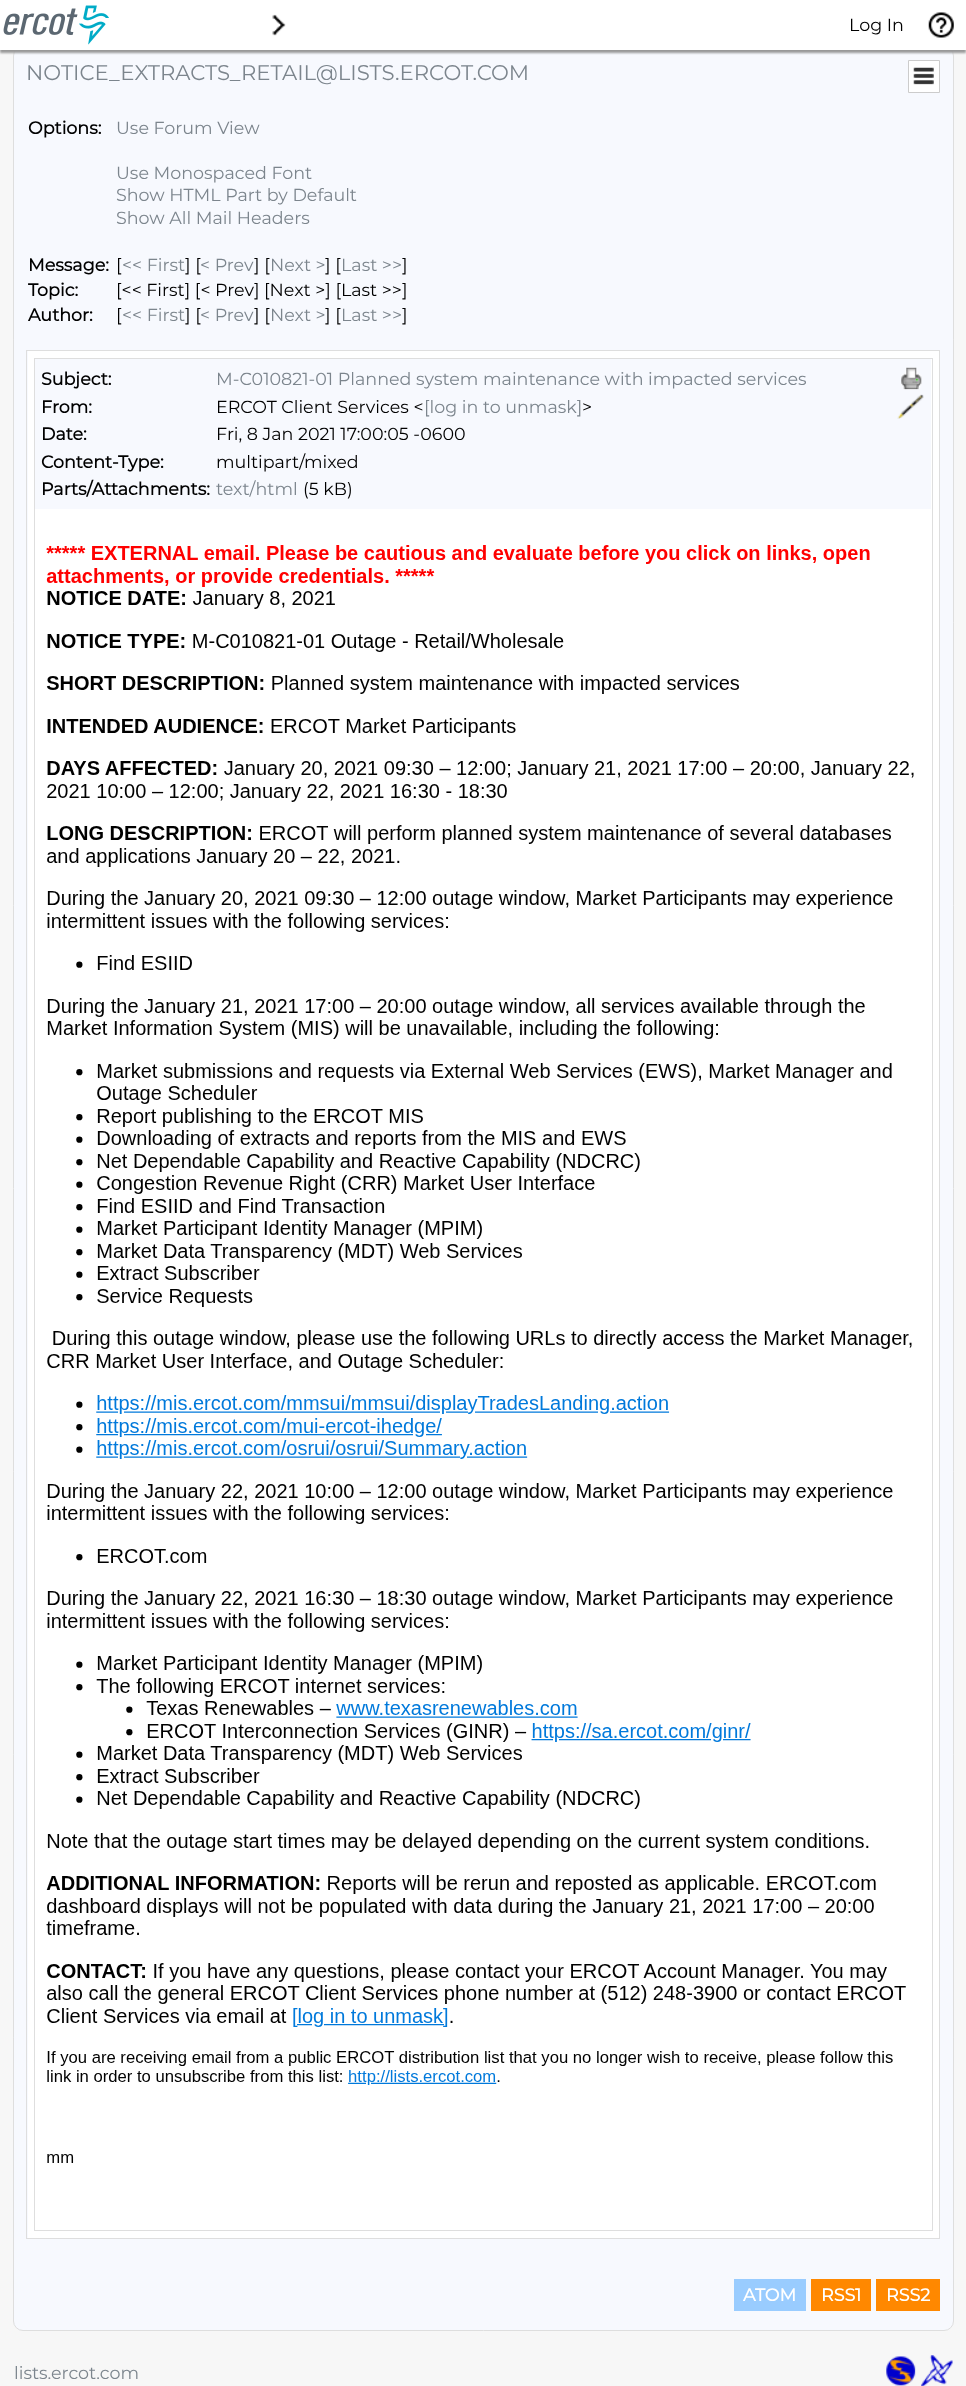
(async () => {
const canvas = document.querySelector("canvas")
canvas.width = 966
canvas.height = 2386
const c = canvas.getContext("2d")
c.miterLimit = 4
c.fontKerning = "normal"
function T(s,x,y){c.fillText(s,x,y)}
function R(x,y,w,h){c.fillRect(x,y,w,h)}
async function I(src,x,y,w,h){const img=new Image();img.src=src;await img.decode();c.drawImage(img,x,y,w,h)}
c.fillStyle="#f7f7f7"
R(0,0,966,2386)
c.fillStyle="#f7f9fe"
c.beginPath()
c.roundRect(13.5,46.5,940,2284,9.5)
c.fill()
c.strokeStyle="#dedede"
c.stroke()
c.fillStyle="#999"
c.filter="blur(1px)"
c.beginPath()
c.rect(0,3,966,50)
c.fill()
c.filter="none"
c.fillStyle="#fff"
R(0,0,966,50)
await I("1.png",3,5,106,40)
await I("2.png",272,14,14,22)
c.font="100 17.5px Montserrat"
c.fillStyle="#000"
T("Log In",849,31)
await I("3.png",928,12,26,26)
c.font="100 21.25px Montserrat"
c.fillStyle="#7c858d"
T("NOTICE_EXTRACTS_RETAIL@LISTS.ERCOT.COM",26,80)
c.fillStyle="#fff"
c.beginPath()
c.rect(908.5,60.5,31,32)
c.fill()
c.strokeStyle="#ccc"
c.stroke()
await I("4.png",913,67,21,18)
c.font="bold 17.5px Montserrat"
c.fillStyle="#000"
T("Options:",28,134)
c.font="100 17.5px Montserrat"
c.fillStyle="#7c858d"
T("Use Forum View",116,134)
T("Use Monospaced Font",116,179)
T("Show HTML Part by Default",116,201)
T("Show All Mail Headers",116,224)
c.font="bold 17.5px Montserrat"
c.fillStyle="#000"
T("Message:",28,271)
c.font="100 17.5px Montserrat"
T("[",116,271)
c.fillStyle="#7c858d"
T("<< First",122,271)
c.fillStyle="#000"
T("] [",185,271)
c.fillStyle="#7c858d"
T("< Prev",200,271)
c.fillStyle="#000"
T("] [",254,271)
c.fillStyle="#7c858d"
T("Next >",270,271)
c.fillStyle="#000"
T("] [",325,271)
c.fillStyle="#7c858d"
T("Last >>",341,271)
c.fillStyle="#000"
T("]",402,271)
c.font="bold 17.5px Montserrat"
T("Topic:",28,296)
c.font="100 17.5px Montserrat"
T("[<< First] [< Prev] [Next >] [Last >>]",116,296)
c.font="bold 17.5px Montserrat"
T("Author:",28,321)
c.font="100 17.5px Montserrat"
T("[",116,321)
c.fillStyle="#7c858d"
T("<< First",122,321)
c.fillStyle="#000"
T("] [",185,321)
c.fillStyle="#7c858d"
T("< Prev",200,321)
c.fillStyle="#000"
T("] [",254,321)
c.fillStyle="#7c858d"
T("Next >",270,321)
c.fillStyle="#000"
T("] [",325,321)
c.fillStyle="#7c858d"
T("Last >>",341,321)
c.fillStyle="#000"
T("]",402,321)
c.strokeStyle="#dedede"
c.strokeRect(26.5,350.5,913,1888)
c.fillStyle="#fff"
R(28,351,911,1887)
c.strokeRect(34.5,358.5,898,1872)
c.fillStyle="#f7f9fe"
R(35,359,896,150)
c.font="bold 17.5px Montserrat"
c.fillStyle="#000"
T("Subject:",41,385)
c.font="100 17.5px Montserrat"
c.fillStyle="#7c858d"
T("M-C010821-01 Planned system maintenance with impacted services",216,385)
c.font="bold 17.5px Montserrat"
c.fillStyle="#000"
T("From:",41,413)
c.font="100 17.5px Montserrat"
T("ERCOT Client Services <",216,413)
c.fillStyle="#7c858d"
T("[log in to unmask]",424,413)
c.fillStyle="#000"
T(">",582,413)
c.font="bold 17.5px Montserrat"
T("Date:",41,440)
c.font="100 17.5px Montserrat"
T("Fri, 8 Jan 2021 17:00:05 -0600",216,440)
c.font="bold 17.5px Montserrat"
T("Content-Type:",41,468)
c.font="100 17.5px Montserrat"
T("multipart/mixed",216,468)
c.font="bold 17.5px Montserrat"
T("Parts/Attachments:",41,495)
c.font="100 17.5px Montserrat"
c.fillStyle="#7c858d"
T("text/html",216,495)
c.fillStyle="#000"
T("(5 kB)",303,495)
await I("5.png",901,367,21,23)
await I("6.png",897,394,27,25)
await I("7.png",46,545,868,1618)
c.fillStyle="#9cf"
R(734,2279,72,32)
c.font="bold 17.5px Montserrat"
c.fillStyle="#fff"
T("ATOM",743,2301)
c.fillStyle="#f80"
R(811,2279,60,32)
c.fillStyle="#fff"
T("RSS1",821,2301)
c.fillStyle="#f80"
R(876,2279,64,32)
c.fillStyle="#fff"
T("RSS2",886,2301)
c.font="100 17.5px Montserrat"
c.fillStyle="#7c858d"
T("lists.ercot.com",14,2379)
await I("8.png",886,2356,30,30)
await I("9.png",921,2355,32,31)
})()
